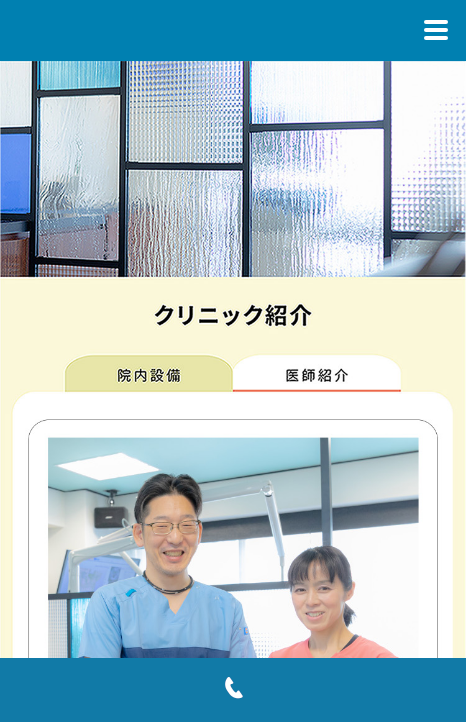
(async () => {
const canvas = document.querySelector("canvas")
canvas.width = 466
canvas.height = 722
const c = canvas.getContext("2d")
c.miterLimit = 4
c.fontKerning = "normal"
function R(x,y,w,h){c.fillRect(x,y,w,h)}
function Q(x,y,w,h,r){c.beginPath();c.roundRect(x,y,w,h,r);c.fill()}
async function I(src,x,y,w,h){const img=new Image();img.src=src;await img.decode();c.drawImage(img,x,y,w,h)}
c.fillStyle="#fff"
R(0,0,466,722)
c.fillStyle="#0080b1"
R(0,0,466,61)
c.fillStyle="#fff"
Q(424,20,24,4,2)
Q(424,28,24,4,2)
Q(424,36,24,4,2)
await I("1.png",0,61,466,597)
c.fillStyle="#117aa7"
R(0,658,466,64)
await I("2.png",225,677,18,22)
})()
